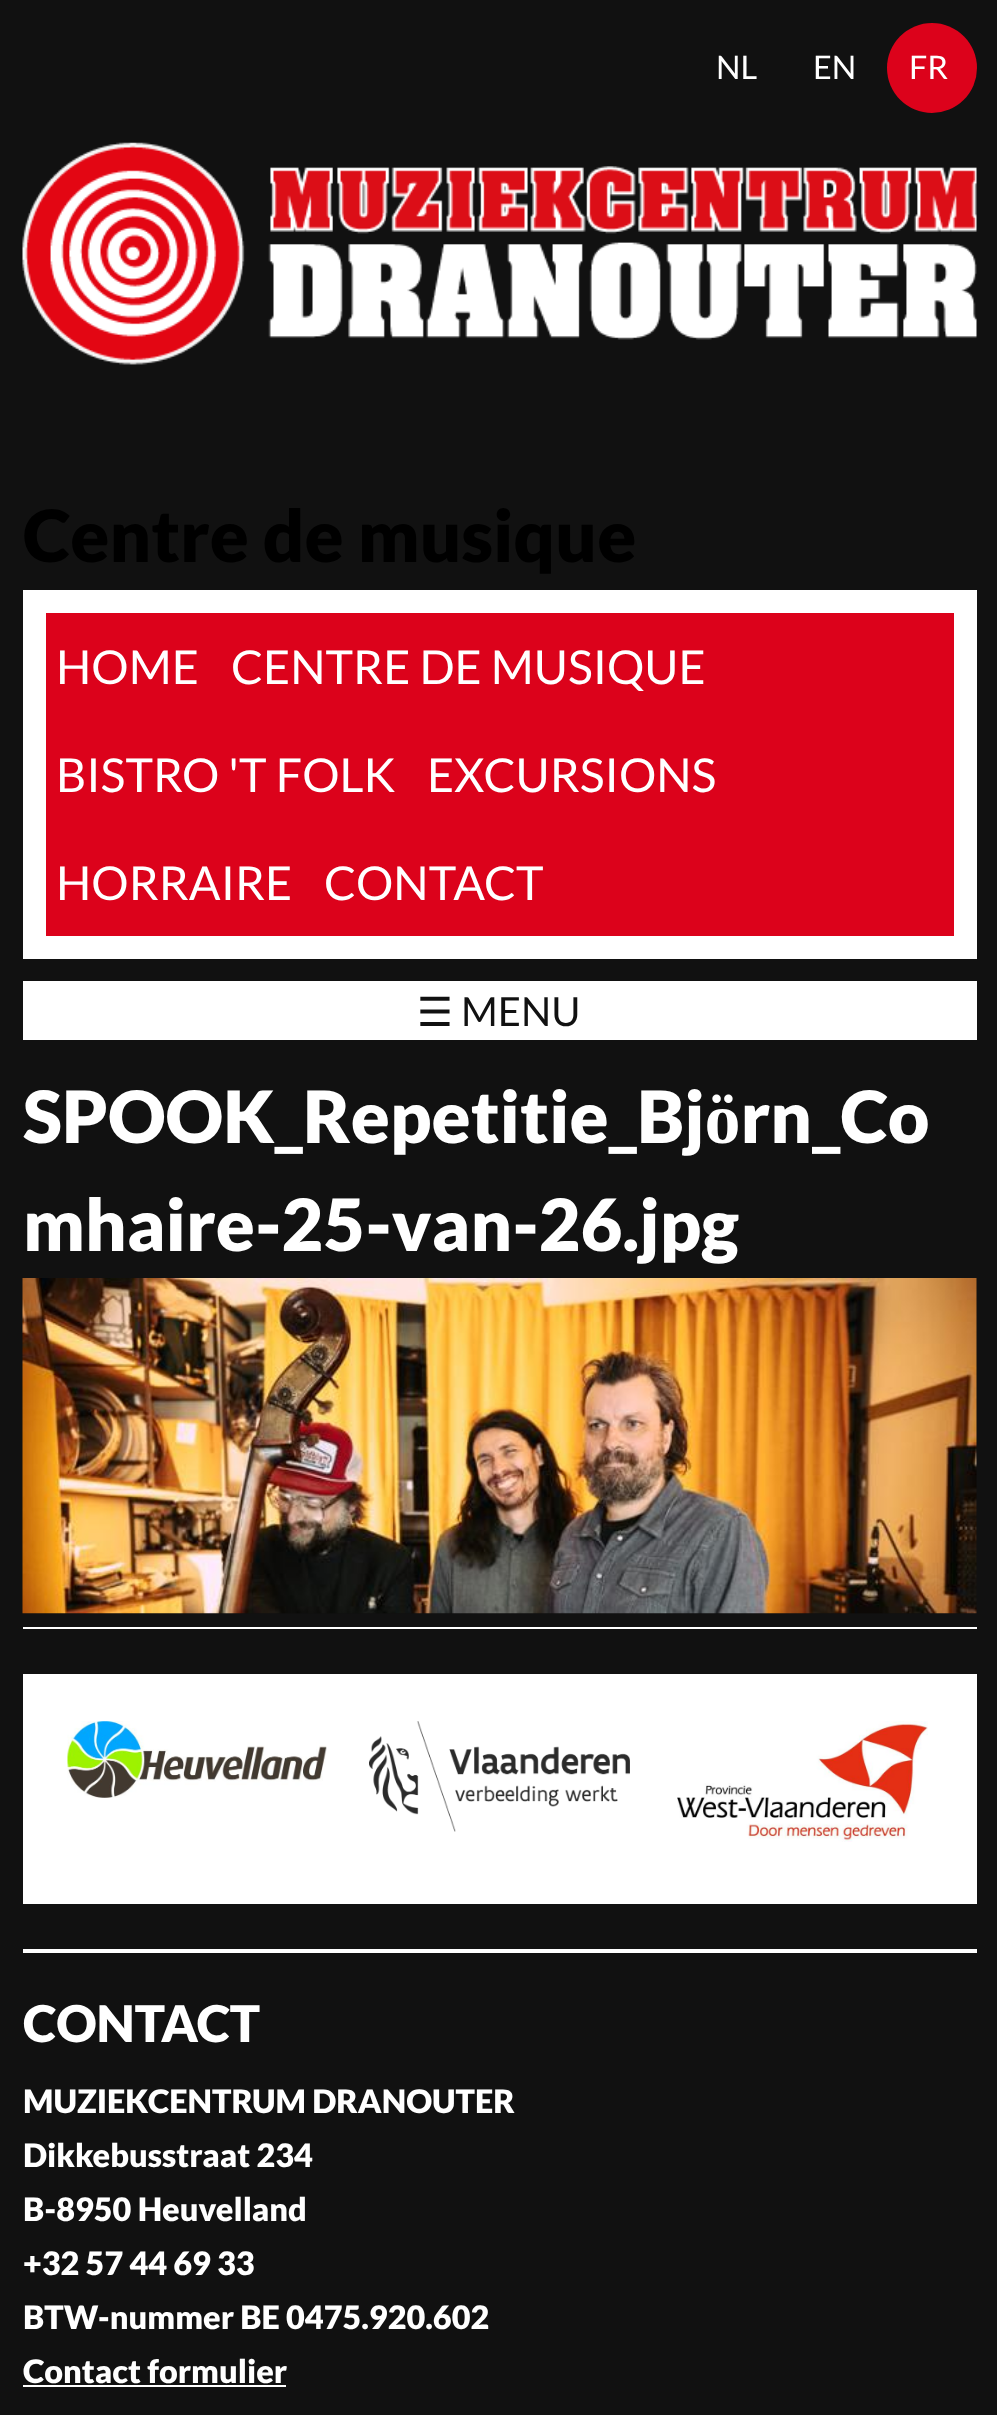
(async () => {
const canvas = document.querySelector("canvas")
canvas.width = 997
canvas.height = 2415
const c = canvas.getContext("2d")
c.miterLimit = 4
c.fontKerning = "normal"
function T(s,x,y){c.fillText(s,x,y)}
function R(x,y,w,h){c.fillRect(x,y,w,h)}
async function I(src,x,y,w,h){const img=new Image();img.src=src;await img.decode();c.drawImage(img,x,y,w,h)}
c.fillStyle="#111"
R(0,0,997,2415)
c.font="32.4px Lato"
c.fillStyle="#fff"
T("NL",716,79)
T("EN",813,79)
c.fillStyle="#dc021b"
c.beginPath()
c.arc(932,68,45,0,7)
c.fill()
c.fillStyle="#fff"
T("FR",909,79)
await I("1.png",22,142,955,223)
c.font="900 72px Lato"
c.fillStyle="#000"
T("Centre de musique",23,562)
c.fillStyle="#dc021b"
c.beginPath()
c.rect(34.5,601.5,931,346)
c.fill()
c.strokeStyle="#fff"
c.lineWidth=23
c.stroke()
c.font="46.75px Lato"
c.fillStyle="#fff"
T("HOME",56,684)
T("CENTRE DE MUSIQUE",231,684)
T("BISTRO 'T FOLK",56,792)
T("EXCURSIONS",427,792)
T("HORRAIRE",56,900)
T("CONTACT",324,900)
R(23,981,954,59)
c.font="40px DejaVu Sans"
c.fillStyle="#111"
T("☰",417,1026)
c.font="40px Lato"
T("MENU",461,1026)
c.font="900 72px Lato"
c.fillStyle="#fff"
T("SPOOK_Repetitie_Björn_Co",23,1143)
T("mhaire-25-van-26.jpg",23,1251)
await I("2.png",22,1278,955,336)
R(23,1627,954,2)
R(23,1949,954,4)
R(23,1674,954,230)
await I("3.png",67,1721,260,77)
await I("4.png",369,1721,261,111)
await I("5.png",677,1721,251,121)
c.font="900 50.5px Lato"
T("CONTACT",23,2042)
c.font="900 32.4px Lato"
T("MUZIEKCENTRUM DRANOUTER",23,2113)
T("Dikkebusstraat 234",23,2167)
T("B-8950 Heuvelland",23,2221)
T("+32 57 44 69 33",23,2275)
T("BTW-nummer BE 0475.920.602",23,2329)
T("Contact formulier",23,2383)
R(23,2385,263,2)
})()
